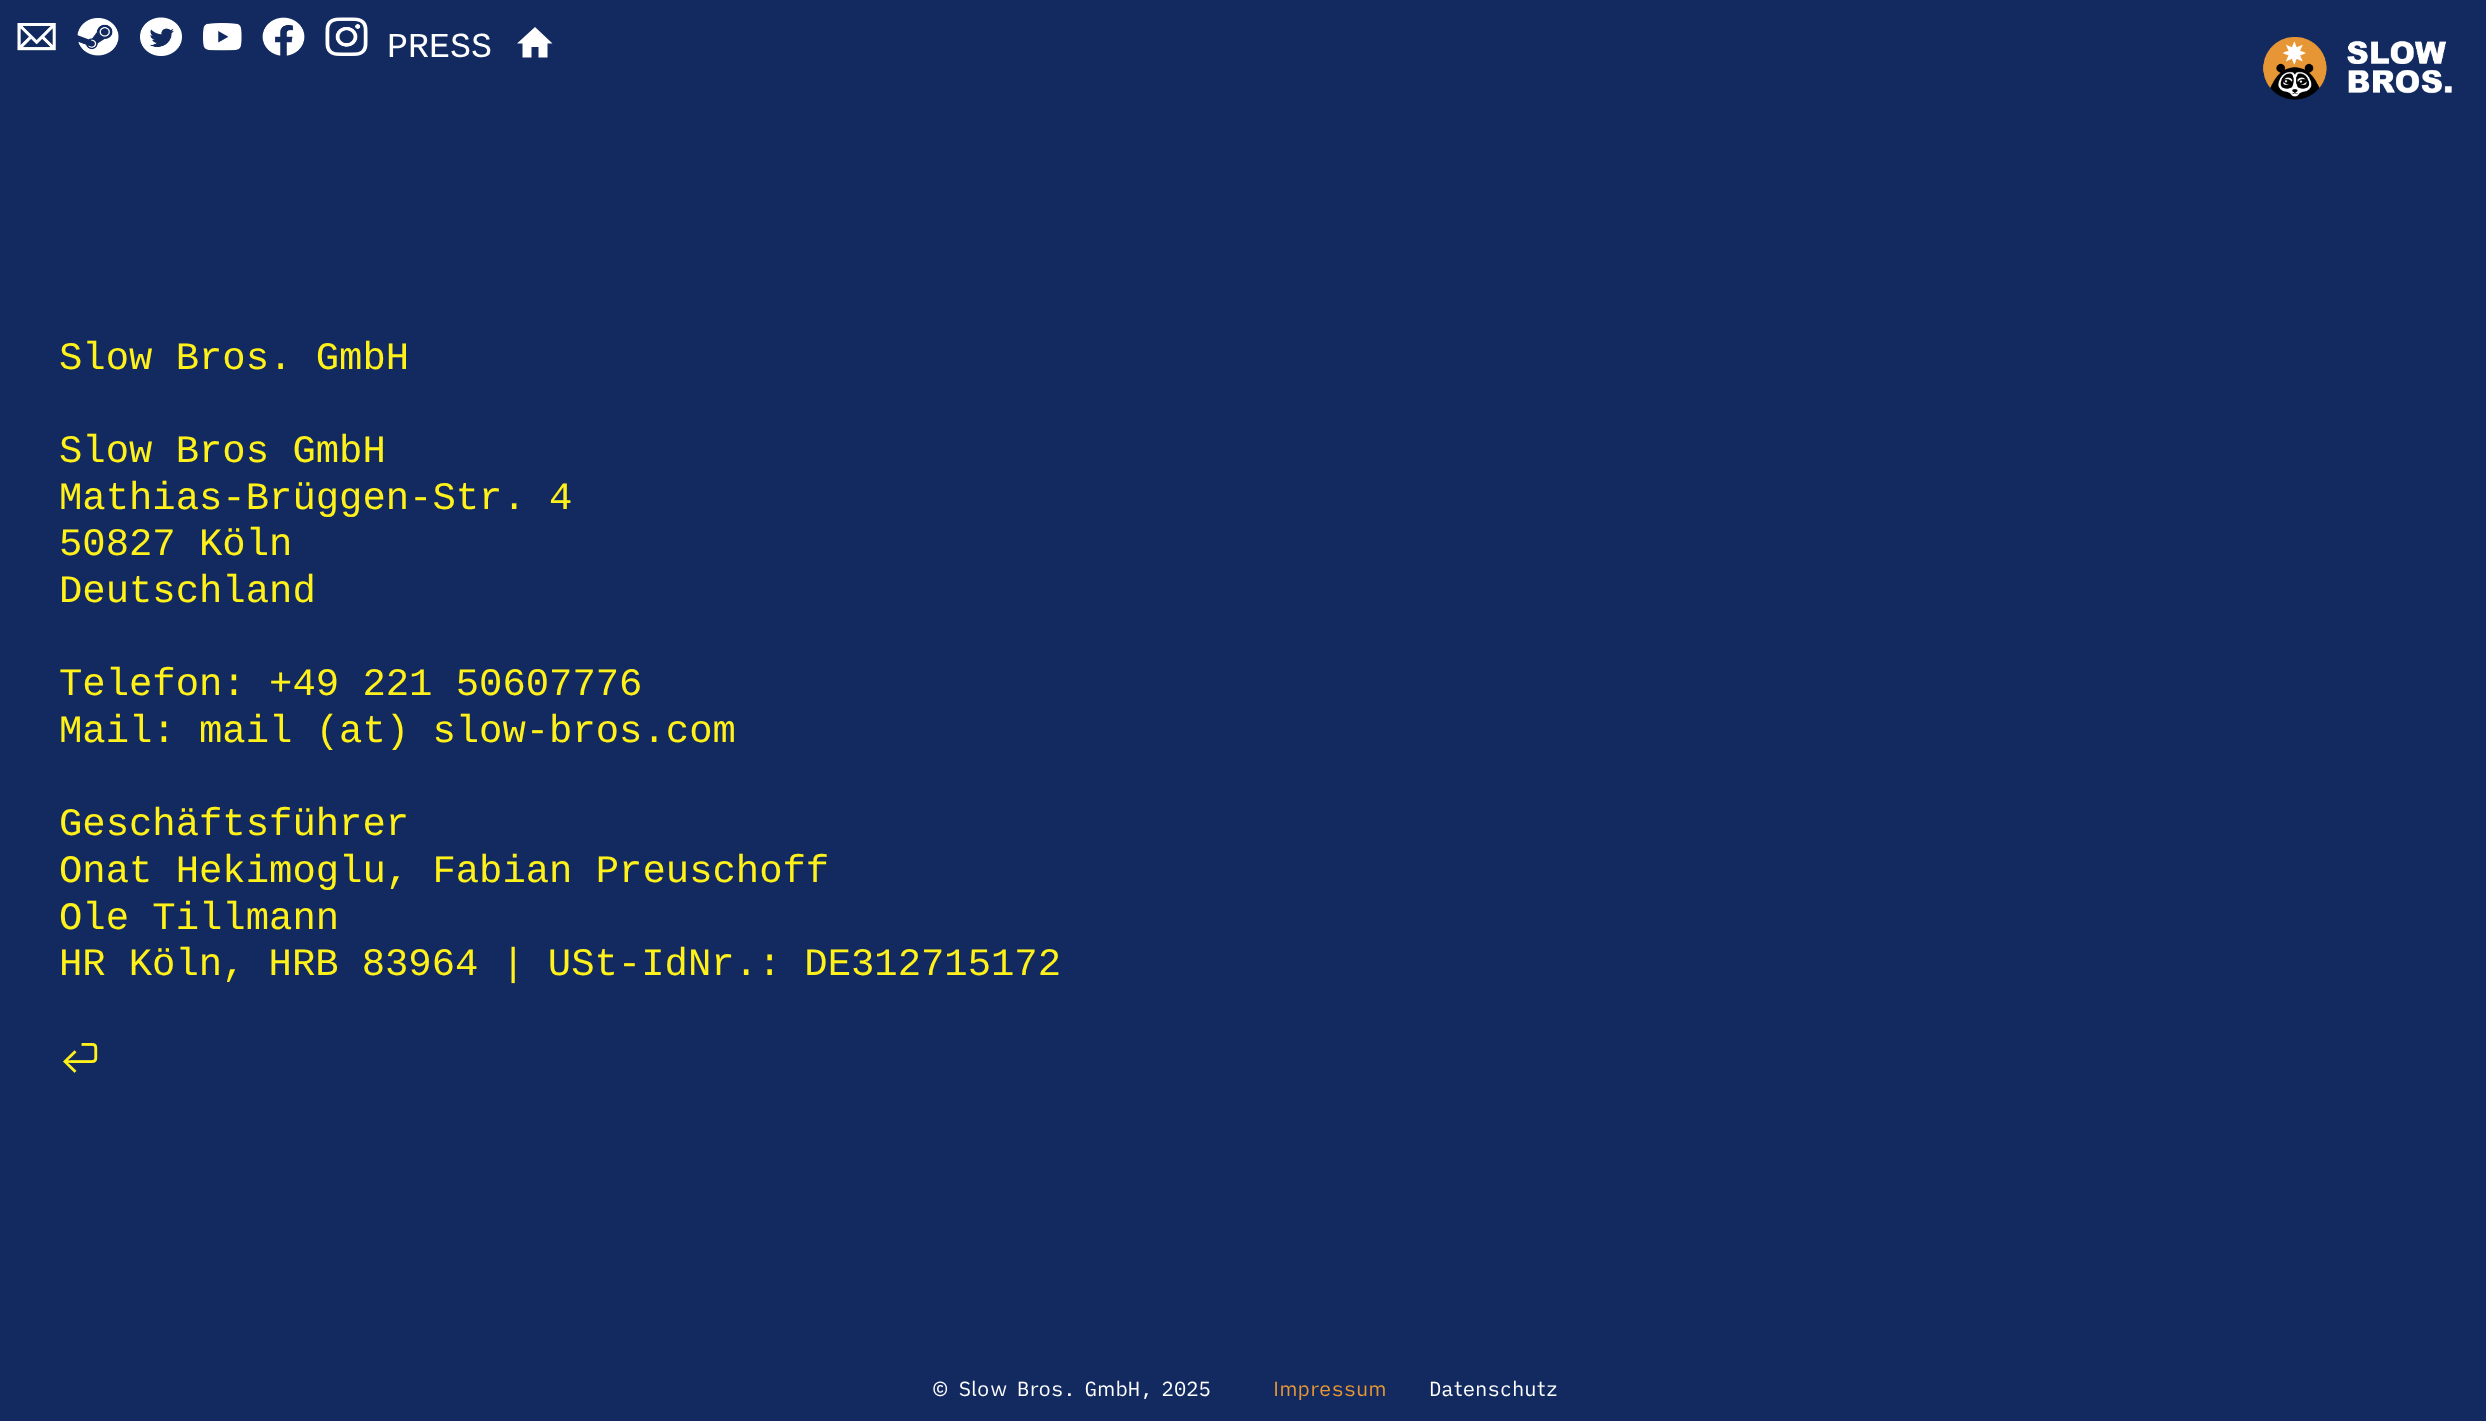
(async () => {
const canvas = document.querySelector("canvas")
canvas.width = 2486
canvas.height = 1421
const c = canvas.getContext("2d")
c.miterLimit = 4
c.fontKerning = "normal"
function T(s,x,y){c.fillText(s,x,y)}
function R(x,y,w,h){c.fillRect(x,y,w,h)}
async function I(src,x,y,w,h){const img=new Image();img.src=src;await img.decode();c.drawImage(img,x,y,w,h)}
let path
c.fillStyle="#122a5f"
R(0,0,2486,1421)
await I("1.png",17,23,39,28)
await I("2.png",77,18,42,38)
await I("3.png",140,17,42,39)
await I("4.png",203,23,39,28)
await I("5.png",262,17,43,39)
await I("6.png",325,17,43,39)
c.font="35px Liberation Mono"
c.fillStyle="#fff"
T("PRESS",387,57)
path = new Path2D("M531.5 47h7v10.5h9v-14h5l-17.5-16.5l-18 16.5h5.5v14h9z")
c.fill(path)
await I("7.png",2263,37,189,63)
c.font="38.9px Liberation Mono"
c.fillStyle="#fff119"
T("Slow Bros. GmbH",59,369)
T("Slow Bros GmbH",59,462)
T("Mathias-Brüggen-Str. 4",59,509)
T("50827 Köln",59,555)
T("Deutschland",59,602)
T("Telefon: +49 221 50607776",59,695)
T("Mail: mail (at) slow-bros.com",59,742)
T("Geschäftsführer",59,835)
T("Onat Hekimoglu, Fabian Preuschoff",59,882)
T("Ole Tillmann",59,929)
c.wordSpacing="-0.25px"
T("HR Köln, HRB 83964 | USt-IdNr.: DE312715172",59,975)
await I("8.png",63,1043,35,30)
c.wordSpacing="0px"
c.font="20.5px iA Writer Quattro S"
c.fillStyle="#fff"
T("© Slow Bros. GmbH, 2025",931,1396)
c.fillStyle="#e79635"
T("Impressum",1273,1396)
c.fillStyle="#fff"
T("Datenschutz",1429,1396)
})()
